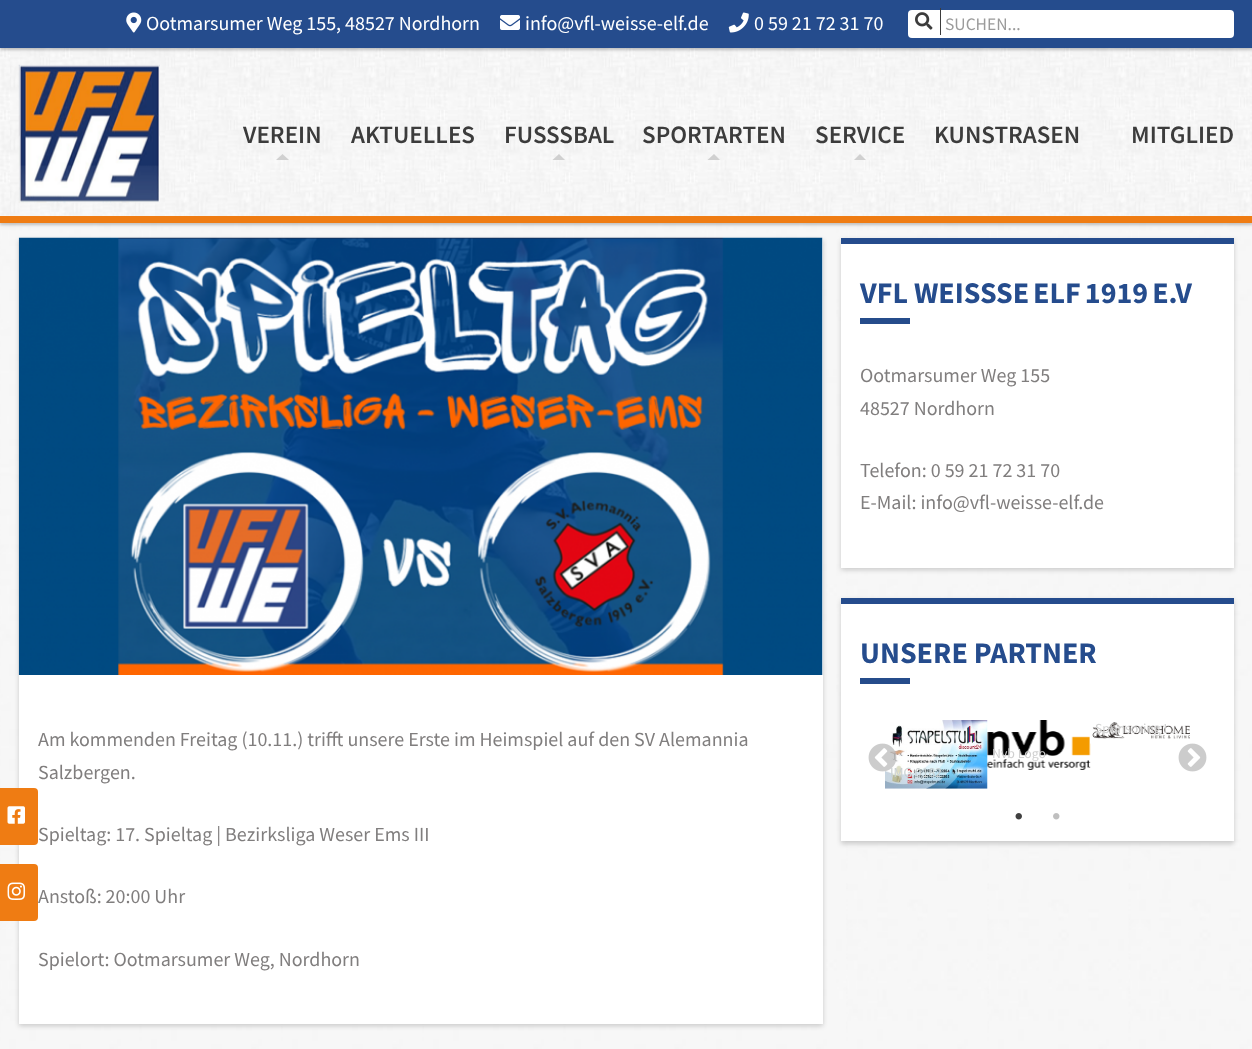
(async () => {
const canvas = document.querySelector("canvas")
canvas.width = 1252
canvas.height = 1049
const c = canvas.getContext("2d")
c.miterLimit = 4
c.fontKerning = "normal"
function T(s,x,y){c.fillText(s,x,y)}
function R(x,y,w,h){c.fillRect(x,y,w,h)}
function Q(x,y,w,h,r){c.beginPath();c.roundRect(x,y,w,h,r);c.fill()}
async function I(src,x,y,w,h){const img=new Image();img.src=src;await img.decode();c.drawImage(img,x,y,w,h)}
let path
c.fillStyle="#fff"
R(0,0,1252,1049)
await I("1.png",0,48,1252,1001)
c.fillStyle="#0000002e"
c.filter="blur(2.5px)"
c.beginPath()
c.rect(19,240,804,786)
c.fill()
c.filter="none"
c.fillStyle="#fff"
R(19,238,804,786)
c.fillStyle="#ef7c13"
Q(-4,788,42,57,4)
await I("2.png",7,806,18,18)
c.font="20px Source Sans Pro"
c.fillStyle="#807e7e"
T("Anstoß: 20:00 Uhr",38,903)
c.fillStyle="#ef7c13"
Q(-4,864,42,57,4)
await I("3.png",7,882,19,18)
c.fillStyle="#00000024"
c.filter="blur(1px)"
c.beginPath()
c.rect(0,3,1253,222)
c.fill()
c.filter="none"
c.fillStyle="#0000001f"
c.filter="blur(3px)"
c.beginPath()
c.rect(0,1,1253,223)
c.fill()
c.filter="none"
await I("8.png",0,48,1252,168)
c.fillStyle="#00000024"
c.filter="blur(1px)"
c.beginPath()
c.rect(0,3,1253,47)
c.fill()
c.filter="none"
c.fillStyle="#0000001f"
c.filter="blur(3px)"
c.beginPath()
c.rect(0,1,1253,48)
c.fill()
c.filter="none"
c.fillStyle="#254c8d"
R(0,0,1252,48)
await I("4.png",126,12,16,21)
c.fillStyle="#fff"
T("Ootmarsumer Weg 155, 48527 Nordhorn",146,30)
await I("5.png",500,15,20,15)
T("info@vfl-weisse-elf.de",525,30)
await I("6.png",728,12,21,21)
T("0 59 21 72 31 70",754,30)
Q(908,10,326,28,4)
c.fillStyle="#3c3c3c"
R(940,8,1,27)
await I("7.png",915,12,18,18)
c.font="17.5px Source Sans Pro"
c.fillStyle="#9b9b9b"
T("SUCHEN...",945,30)
c.fillStyle="#ef7c13"
R(0,216,1252,7)
await I("9.png",18,64,142,139)
c.font="600 25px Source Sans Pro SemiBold"
c.fillStyle="#3c3c3c"
T("VEREIN",243,143)
c.fillStyle="#d0d0d0"
path = new Path2D("M289 160h-13l6.5-6z")
c.fill(path)
c.fillStyle="#3c3c3c"
T("AKTUELLES",351,143)
T("FUSSSBAL",504,143)
c.fillStyle="#d0d0d0"
path = new Path2D("M565 160h-12.5l6.5-6z")
c.fill(path)
c.fillStyle="#3c3c3c"
T("SPORTARTEN",642,143)
c.fillStyle="#d0d0d0"
path = new Path2D("M720 160h-12.5l6.5-6z")
c.fill(path)
c.fillStyle="#3c3c3c"
T("SERVICE",815,143)
c.fillStyle="#d0d0d0"
path = new Path2D("M866 160h-12l6-6z")
c.fill(path)
c.fillStyle="#3c3c3c"
T("KUNSTRASEN",934,143)
T("MITGLIED",1131,143)
c.fillStyle="#0000002e"
c.filter="blur(2.5px)"
c.beginPath()
c.rect(841,240,393,330)
c.fill()
c.filter="none"
c.fillStyle="#fff"
R(841,244,393,324)
c.fillStyle="#254c8d"
R(841,238,393,6)
c.font="bold 30px Source Sans Pro"
T("VFL WEISS",860,303)
c.wordSpacing="-2px"
T("SE ELF 1919 E.V",996,303)
c.fillStyle="#254c8b"
R(860,318,50,6)
c.wordSpacing="0px"
c.font="20px Source Sans Pro"
c.fillStyle="#807e7e"
T("Ootmarsumer Weg 155",860,382)
T("48527 Nordhorn",860,415)
T("Telefon: 0 59 21 72 31 70",860,477)
T("E-Mail: info@vfl-weisse-elf.de",860,509)
c.fillStyle="#0000002e"
c.filter="blur(2.5px)"
c.beginPath()
c.rect(841,600,393,244)
c.fill()
c.filter="none"
c.fillStyle="#fff"
R(841,604,393,237)
c.fillStyle="#254c8d"
R(841,598,393,6)
c.font="bold 30px Source Sans Pro"
T("UNSERE PARTNER",860,663)
c.fillStyle="#254c8b"
R(860,678,50,6)
await I("13.png",885,720,103,69)
c.font="13.75px Source Sans Pro"
c.fillStyle="#cad1d2"
T("IMG 0182",890,777)
await I("10.png",868,743,29,29)
await I("12.png",987,720,104,50)
await I("11.png",1090,722,100,22)
c.fillStyle="#d0d0d0"
T("Sponsoring L…",1095,733)
T("Nvb Logo",992,758)
await I("14.png",1178,743,29,29)
await I("15.png",1015,813,7,7)
await I("16.png",1053,813,7,7)
await I("17.png",18,237,805,438)
c.font="20px Source Sans Pro"
c.fillStyle="#807e7e"
T("Am kommenden Freitag (10.11.) trifft unsere Erste im Heimspiel auf den SV Alemannia",38,746)
T("Salzbergen.",38,779)
T("Spieltag: 17. Spieltag | Bezirksliga Weser Ems III",38,841)
T("Spielort: Ootmarsumer Weg, Nordhorn",38,966)
})()
